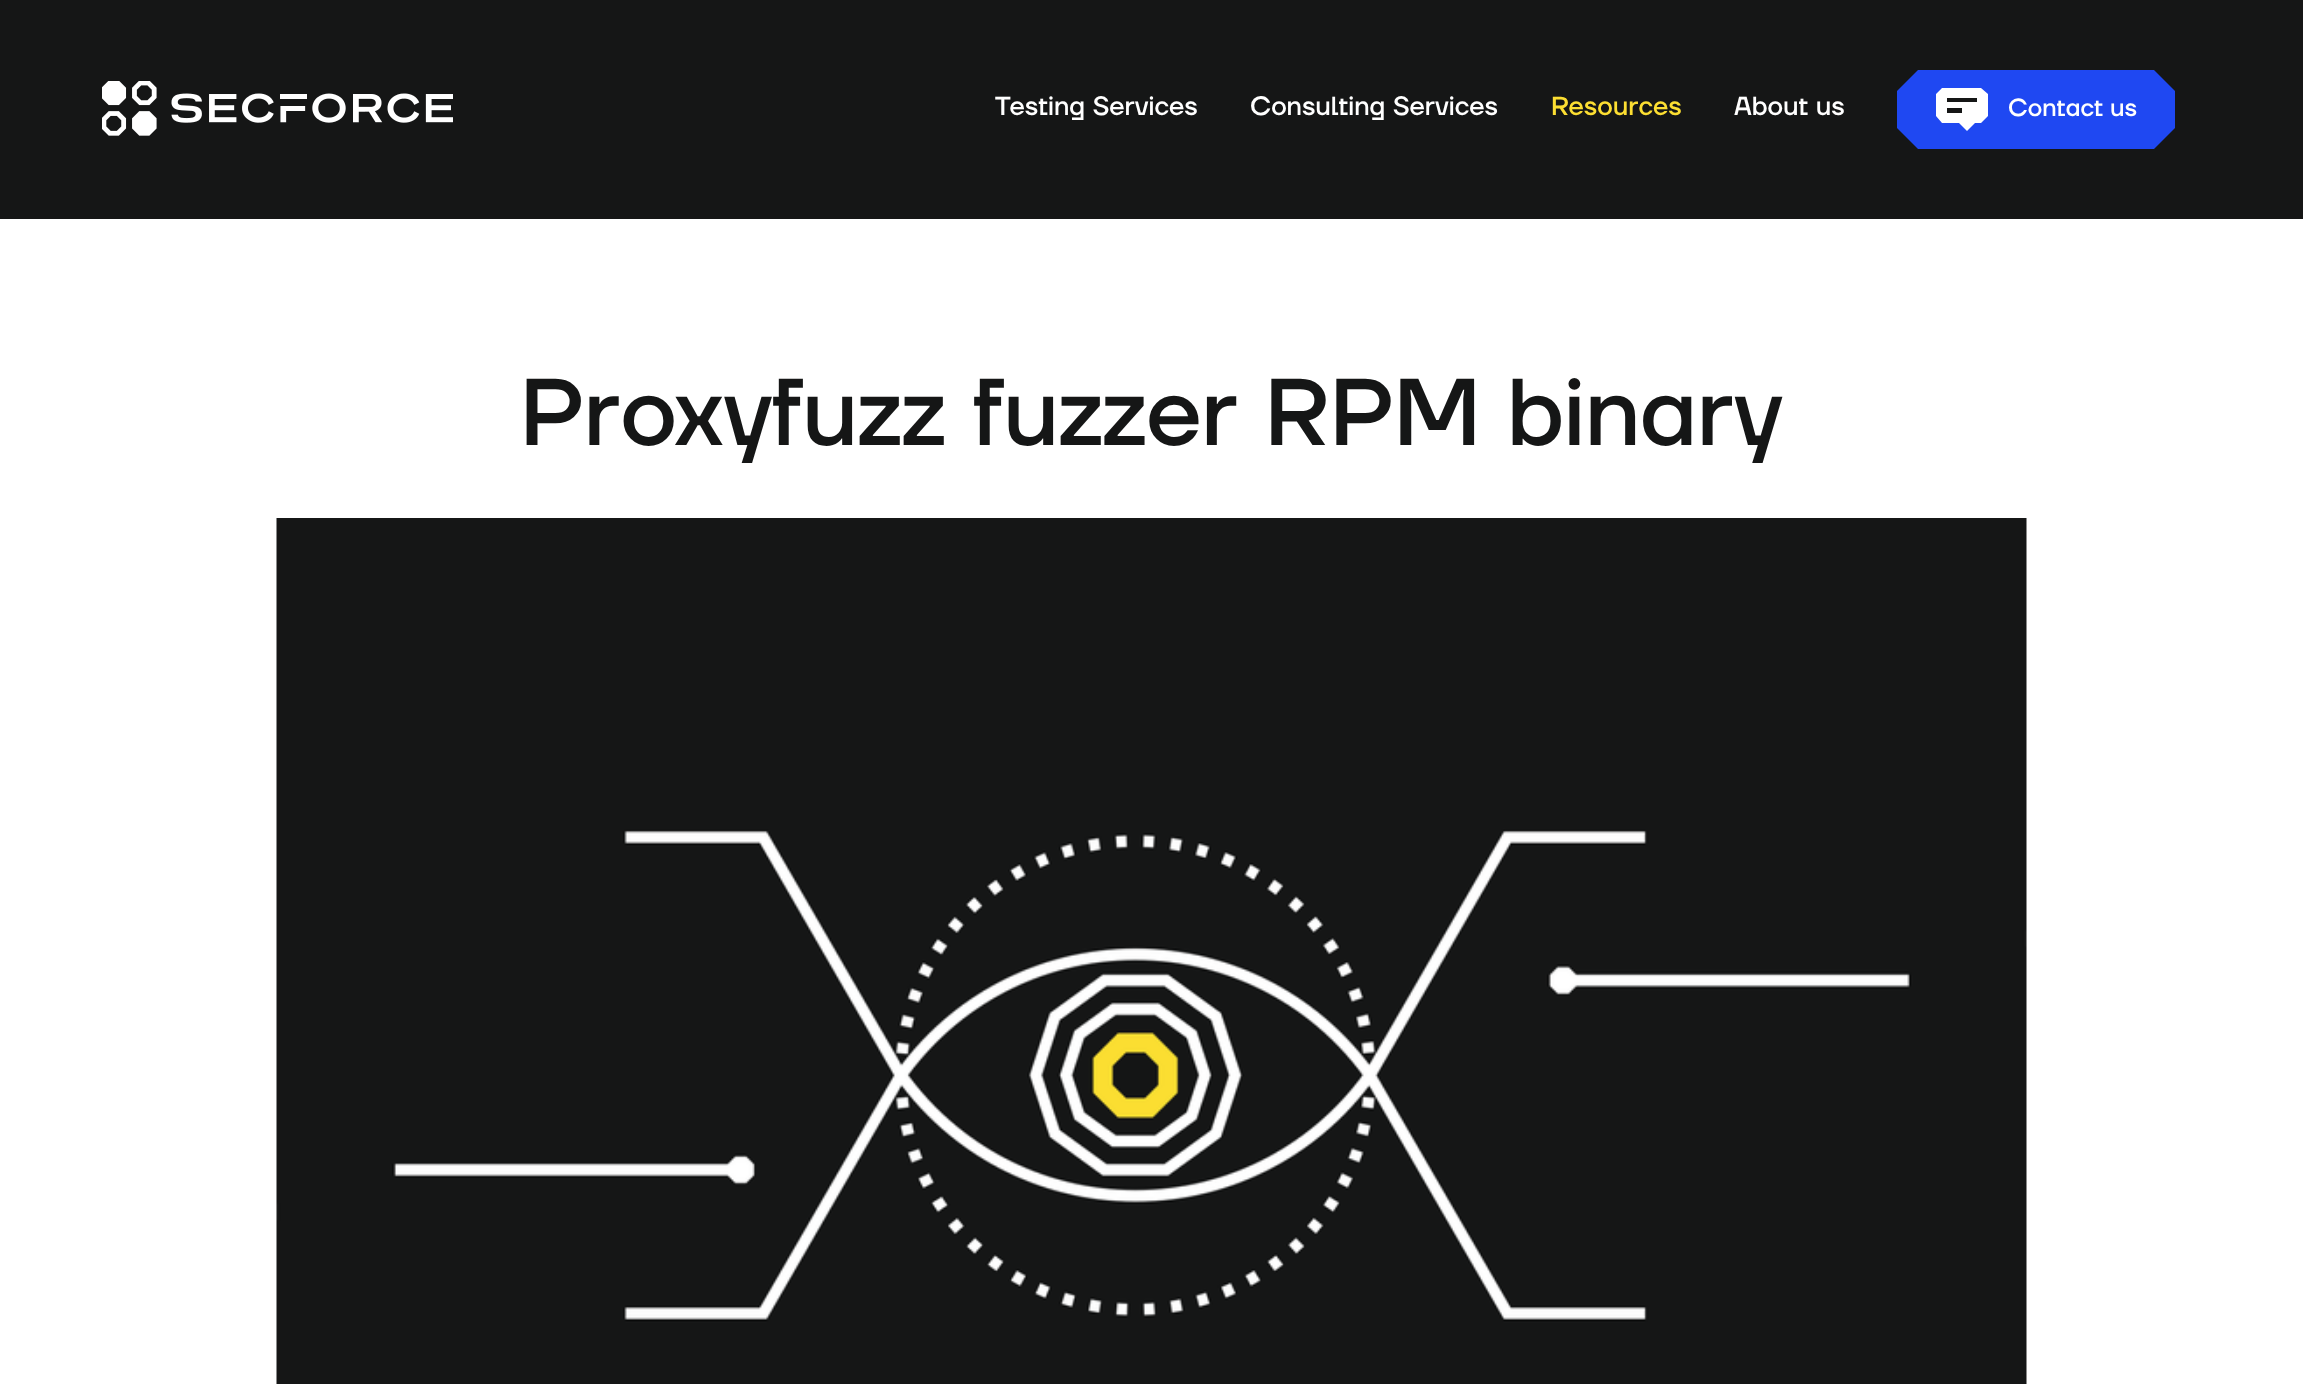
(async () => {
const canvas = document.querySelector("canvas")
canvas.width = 2303
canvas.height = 1384
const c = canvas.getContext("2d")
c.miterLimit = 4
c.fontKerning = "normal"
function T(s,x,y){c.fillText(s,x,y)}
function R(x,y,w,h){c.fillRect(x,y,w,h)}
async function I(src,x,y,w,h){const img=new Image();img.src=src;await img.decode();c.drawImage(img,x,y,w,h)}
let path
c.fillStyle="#fff"
R(0,0,2303,1384)
c.fillStyle="#151616"
R(0,0,2303,219)
await I("1.png",102,81,351,55)
c.font="500 26.25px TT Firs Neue"
c.fillStyle="#fff"
T("Testing Services",995,115)
T("Consulting Services",1250,115)
c.fillStyle="#fcde32"
T("Resources",1551,115)
c.fillStyle="#fff"
T("About us",1734,115)
c.fillStyle="#1f48f2"
R(1918,70,236,79)
path = new Path2D("M1918 70v79l-21-21v-37z")
c.fill(path)
c.fillStyle="#fff"
path = new Path2D("M1942 88l-6 6v22l6 7h17l8 8l8-8h6l7-7v-22l-7-6z")
c.fill(path)
c.fillStyle="#151616"
R(1947,98,30,4)
R(1947,108,15,5)
c.font="500 24.5px TT Firs Neue"
c.fillStyle="#fff"
T("Contact us",2008,116)
c.fillStyle="#1f48f2"
path = new Path2D("M2154 149v-79l21 21v37z")
c.fill(path)
c.font="500 94.5px TT Firs Neue"
c.fillStyle="#151616"
T("Proxyfuzz fuzzer RPM binary",520,445)
await I("2.png",276,518,1751,866)
})()
